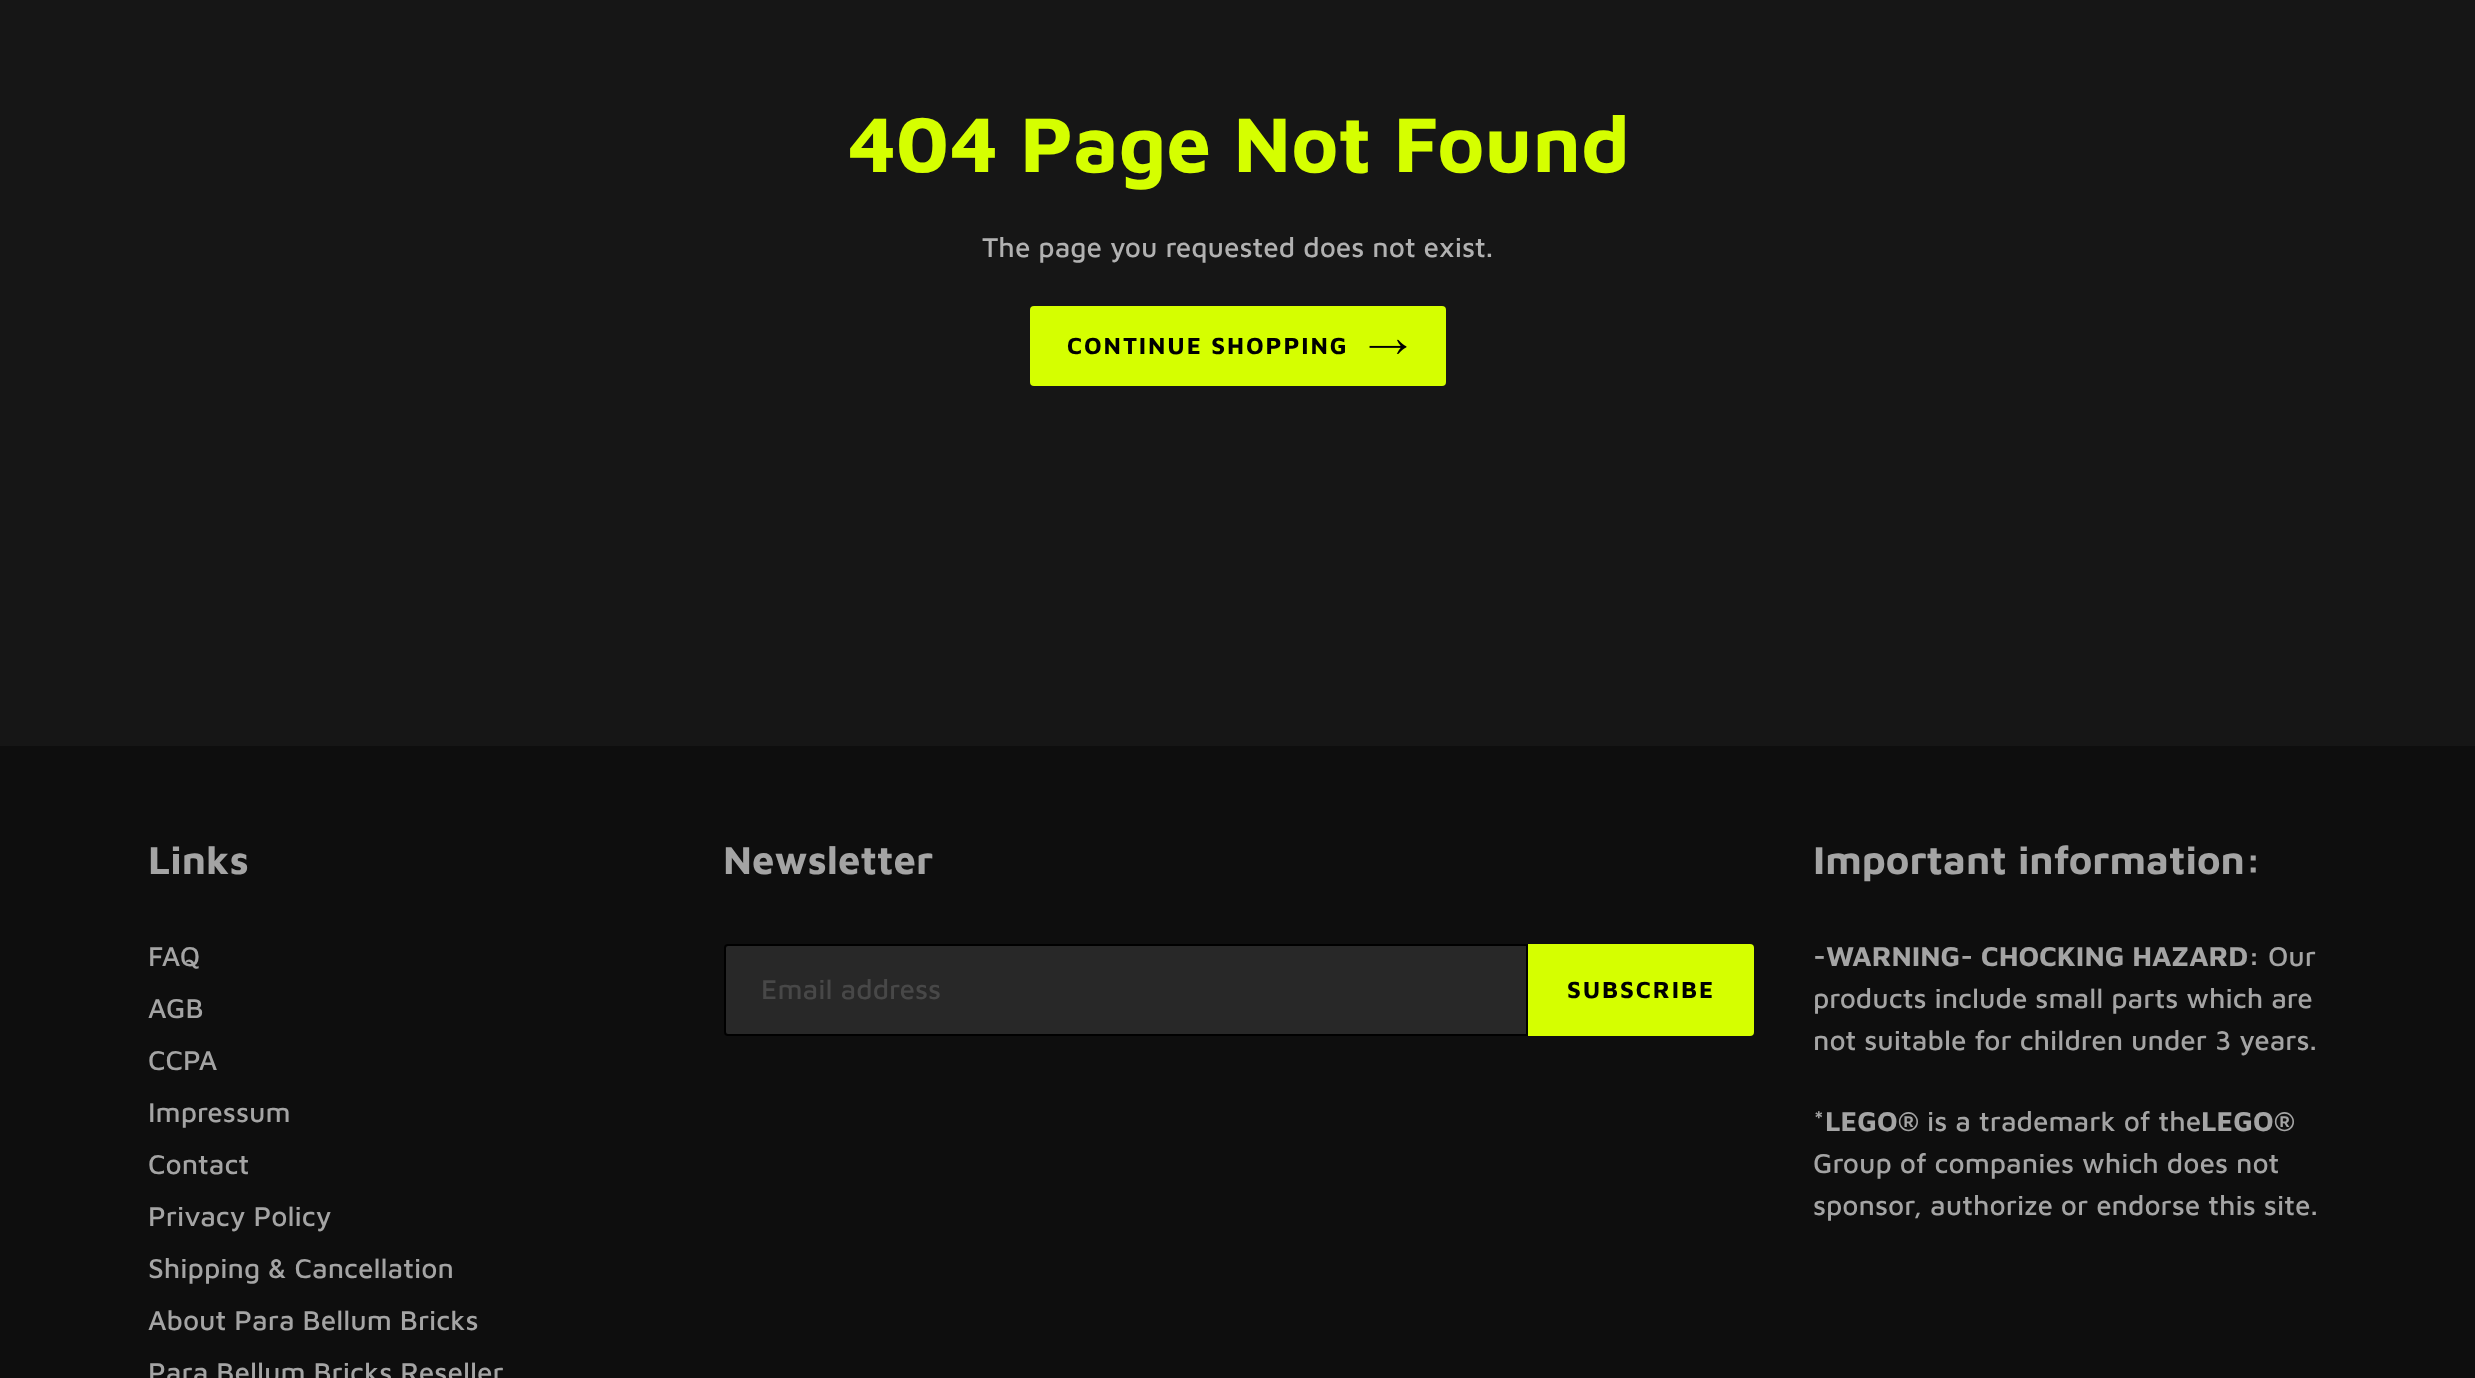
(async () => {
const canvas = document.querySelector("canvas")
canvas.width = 2475
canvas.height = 1378
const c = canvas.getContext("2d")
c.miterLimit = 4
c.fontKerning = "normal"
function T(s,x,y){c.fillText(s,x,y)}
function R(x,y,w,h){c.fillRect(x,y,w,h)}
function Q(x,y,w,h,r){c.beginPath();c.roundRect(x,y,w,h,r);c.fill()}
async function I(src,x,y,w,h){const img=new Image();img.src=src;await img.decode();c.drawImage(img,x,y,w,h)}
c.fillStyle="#161616"
R(0,0,2475,1378)
c.font="bold 80px Maven Pro"
c.fillStyle="#d5ff00"
T("404 Page Not Found",847,172)
c.font="500 28px Maven Pro"
c.fillStyle="#b1b1b1"
T("The page you requested does not exist.",982,257)
c.fillStyle="#d5ff00"
Q(1030,306,416,80,4)
c.letterSpacing="1.9px"
c.font="bold 24px Maven Pro"
c.fillStyle="#000"
T("CONTINUE SHOPPING",1067,354)
await I("1.png",1369,339,38,15)
c.fillStyle="#0e0e0e"
R(0,746,2475,632)
c.letterSpacing="0px"
c.font="bold 40px Maven Pro"
c.fillStyle="#a4a4a4"
T("Links",148,874)
c.font="500 28px Maven Pro"
T("FAQ",148,966)
T("AGB",148,1018)
T("CCPA",148,1070)
T("Impressum",148,1122)
T("Contact",148,1174)
T("Privacy Policy",148,1226)
T("Shipping & Cancellation",148,1278)
T("About Para Bellum Bricks",148,1330)
T("Para Bellum Bricks Reseller",148,1382)
c.font="bold 40px Maven Pro"
T("Newsletter",723,874)
c.fillStyle="#282828"
c.beginPath()
c.roundRect(725,945,802,90,[3,0,0,3])
c.fill()
c.strokeStyle="#000"
c.lineWidth=2
c.stroke()
c.font="500 28px Maven Pro"
c.fillStyle="#484848"
T("Email address",761,999)
c.fillStyle="#d5ff00"
c.beginPath()
c.roundRect(1528,944,226,92,[0,4,4,0])
c.fill()
c.letterSpacing="1.9px"
c.font="bold 24px Maven Pro"
c.fillStyle="#000"
T("SUBSCRIBE",1567,998)
c.letterSpacing="0px"
c.font="bold 40px Maven Pro"
c.fillStyle="#a4a4a4"
T("Important information:",1813,874)
c.font="bold 28px Maven Pro"
T("-WARNING- CHOCKING HAZARD:",1813,966)
c.font="500 28px Maven Pro"
T("Our",2268,966)
T("products include small parts which are",1813,1008)
T("not suitable for children under 3 years.",1813,1050)
T("*",1813,1131)
c.font="bold 28px Maven Pro"
T("LEGO®",1825,1131)
c.font="500 28px Maven Pro"
T("is a trademark of the",1927,1131)
c.font="bold 28px Maven Pro"
T("LEGO®",2201,1131)
c.font="500 28px Maven Pro"
T("Group of companies which does not",1813,1173)
T("sponsor, authorize or endorse this site.",1813,1215)
})()
